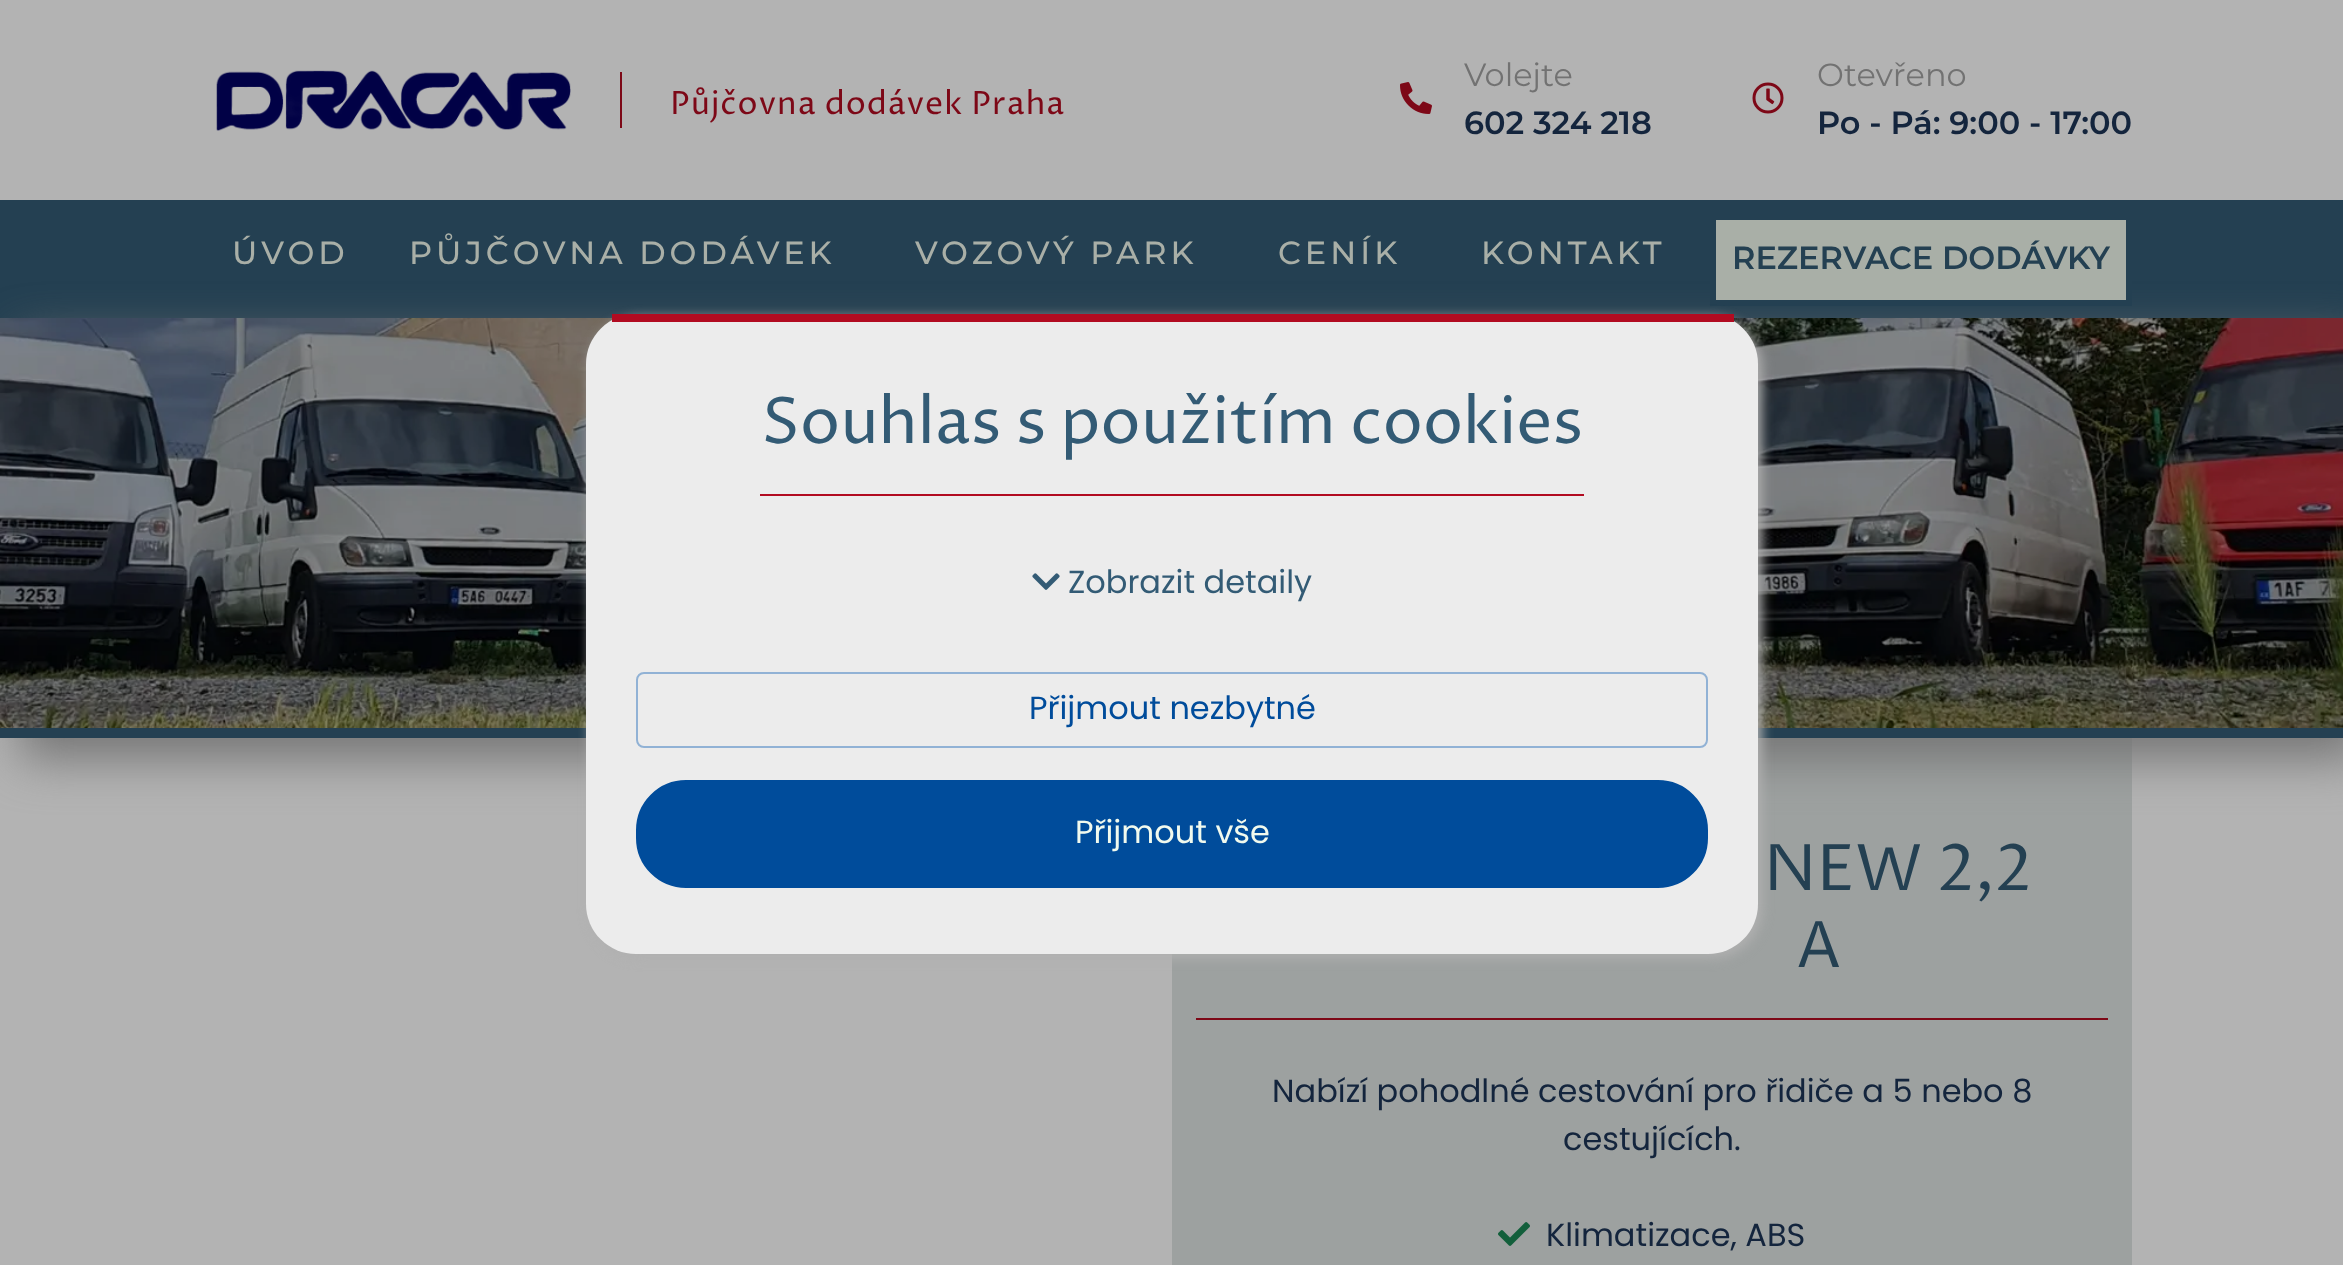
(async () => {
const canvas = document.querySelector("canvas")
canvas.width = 2343
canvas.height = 1265
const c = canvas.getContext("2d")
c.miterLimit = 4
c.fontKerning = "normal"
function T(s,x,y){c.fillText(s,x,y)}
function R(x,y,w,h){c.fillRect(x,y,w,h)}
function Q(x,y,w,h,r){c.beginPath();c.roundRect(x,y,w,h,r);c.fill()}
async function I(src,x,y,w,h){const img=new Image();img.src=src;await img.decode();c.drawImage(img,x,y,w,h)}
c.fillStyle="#b3b3b3"
R(0,0,2343,1265)
await I("1.png",216,70,355,61)
c.fillStyle="#7d0817"
R(620,72,2,56)
c.letterSpacing="1px"
c.font="32px Proza Libre"
T("Půjčovna dodávek Praha",670,114)
await I("2.png",1400,82,32,32)
c.letterSpacing="0px"
c.font="32px Montserrat"
c.fillStyle="#727272"
T("Volejte",1464,86)
c.font="600 32px Montserrat"
c.fillStyle="#14253d"
T("602 324 218",1464,134)
await I("3.png",1752,82,32,32)
c.font="32px Montserrat"
c.fillStyle="#727272"
T("Otevřeno",1817,86)
c.font="600 32px Montserrat"
c.fillStyle="#14253d"
T("Po - Pá: 9:00 - 17:00",1817,134)
c.fillStyle="#244052"
R(0,200,2343,118)
c.letterSpacing="4px"
c.font="500 32px Montserrat"
c.fillStyle="#a9afa7"
T("ÚVOD",232,264)
T("PŮJČOVNA DODÁVEK",409,264)
T("VOZOVÝ PARK",915,264)
T("CENÍK",1278,264)
T("KONTAKT",1481,264)
c.fillStyle="#9da1a0"
R(1172,738,960,527)
c.fillStyle="#747474"
c.filter="blur(24px)"
c.beginPath()
c.rect(20,338,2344,420)
c.fill()
c.filter="none"
c.fillStyle="#a9afa7"
c.beginPath()
c.rect(1713,217,416,86)
c.fill()
c.strokeStyle="#244052"
c.lineWidth=6
c.stroke()
c.letterSpacing="0px"
c.font="600 32px Montserrat"
c.fillStyle="#244052"
T("REZERVACE DODÁVKY",1732,269)
R(0,728,2343,10)
await I("5.png",0,318,2343,410)
c.fillStyle="#b0b0b0"
c.filter="blur(6px)"
c.beginPath()
c.roundRect(590,318,1172,640,50)
c.fill()
c.filter="none"
c.fillStyle="#ececec"
Q(586,314,1172,640,50)
c.fillStyle="#b20b21"
R(612,314,1122,8)
R(760,494,824,2)
c.font="64px Proza Libre"
c.fillStyle="#335b75"
T("Souhlas s použitím cookies",761,443)
await I("4.png",1032,573,28,17)
c.font="32px Poppins"
T("Zobrazit detaily",1068,593)
c.beginPath()
c.roundRect(637,673,1070,74,7)
c.strokeStyle="#91b2d5"
c.lineWidth=2
c.stroke()
c.fillStyle="#004c9b"
T("Přijmout nezbytné",1029,719)
c.beginPath()
c.roundRect(637,781,1070,106,49)
c.fill()
c.strokeStyle="#004c9b"
c.stroke()
c.fillStyle="#f1faee"
T("Přijmout vše",1075,843)
c.fillStyle="#7d0817"
R(1196,1018,912,2)
c.font="64px Proza Libre"
c.fillStyle="#244052"
T("NEW 2,2",1764,890)
T("A",1796,967)
c.font="32px Poppins"
c.fillStyle="#14253d"
T("Nabízí pohodlné cestování pro řidiče a 5 nebo 8",1272,1102)
T("cestujících.",1563,1150)
await I("6.png",1498,1222,32,24)
T("Klimatizace, ABS",1546,1246)
})()
